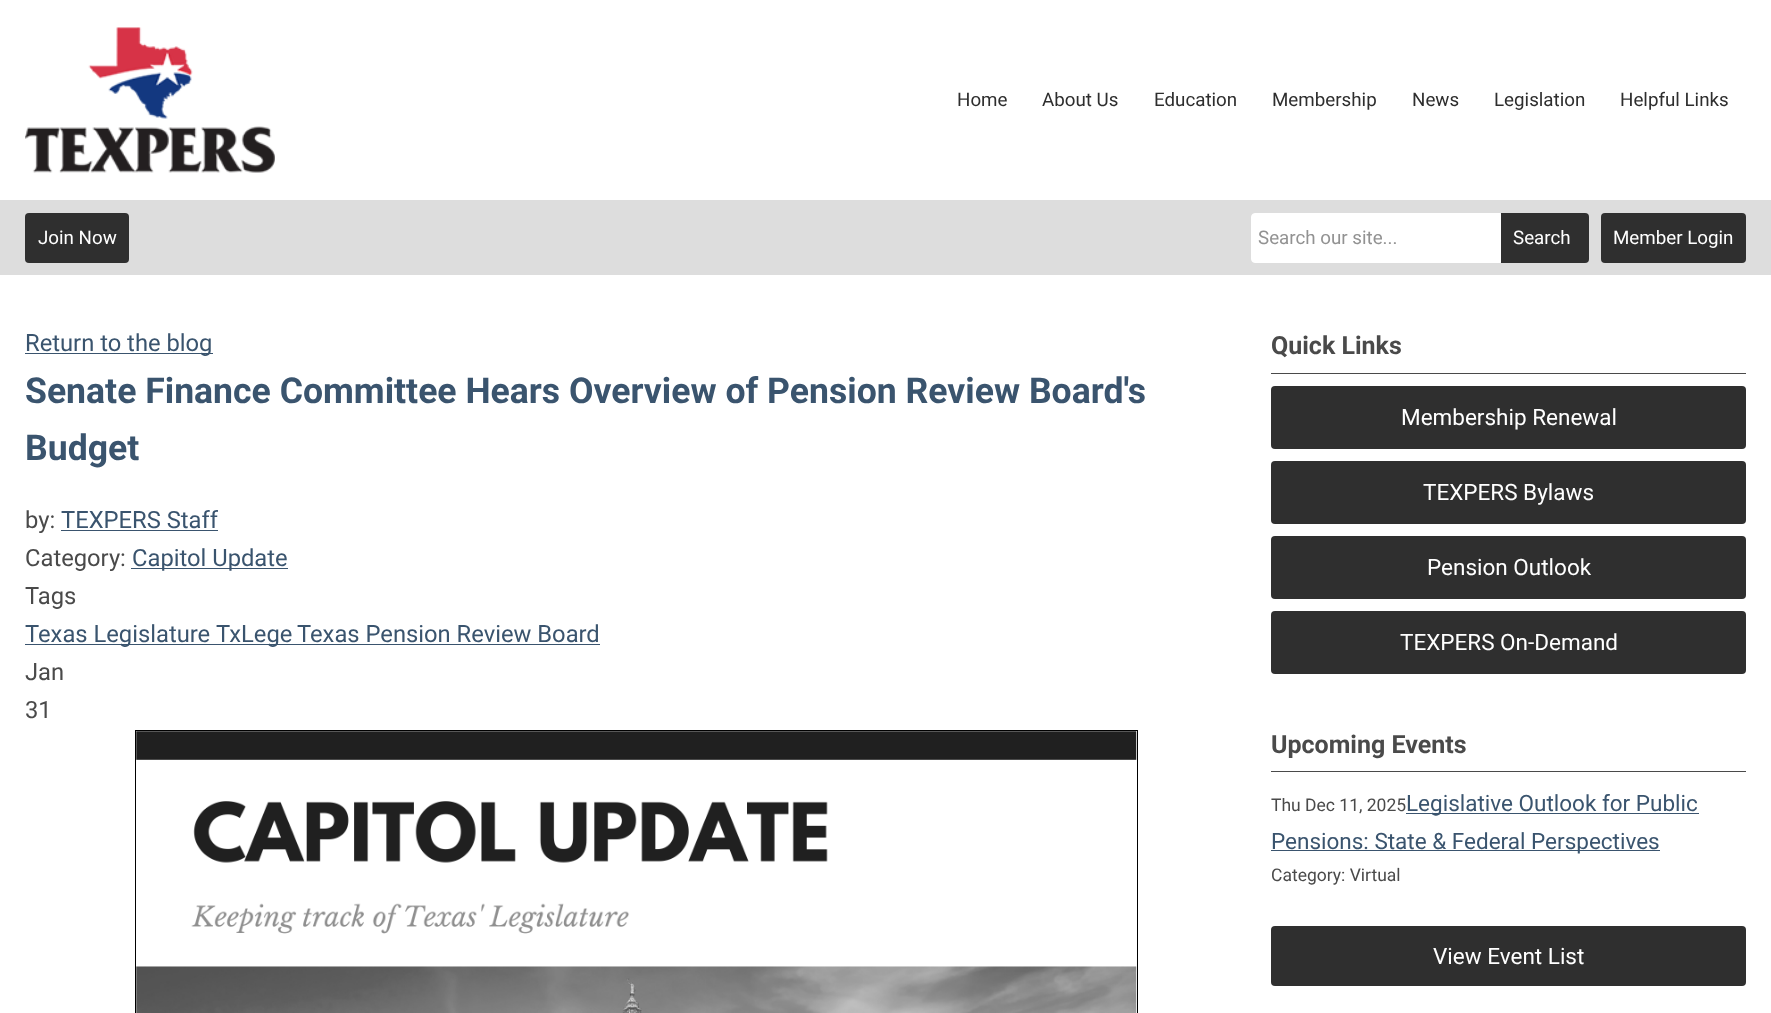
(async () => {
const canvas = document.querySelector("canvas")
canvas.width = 1771
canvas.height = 1013
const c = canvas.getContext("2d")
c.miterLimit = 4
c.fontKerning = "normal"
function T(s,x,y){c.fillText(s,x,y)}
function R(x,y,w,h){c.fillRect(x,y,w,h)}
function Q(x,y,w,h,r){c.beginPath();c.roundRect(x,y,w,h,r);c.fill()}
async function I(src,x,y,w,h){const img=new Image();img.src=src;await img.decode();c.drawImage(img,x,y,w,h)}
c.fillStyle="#fff"
R(0,0,1771,1013)
await I("1.png",25,27,250,146)
c.font="18.75px Roboto"
c.fillStyle="#2e2e2e"
T("Home",957,106)
T("About Us",1042,106)
T("Education",1154,106)
T("Membership",1272,106)
T("News",1412,106)
T("Legislation",1494,106)
T("Helpful Links",1620,106)
c.fillStyle="#ddd"
R(0,200,1771,75)
c.fillStyle="#2f2f2f"
Q(25,213,104,50,4)
c.fillStyle="#fff"
T("Join Now",38,244)
c.beginPath()
c.roundRect(1251.5,213.5,249,49,[3.5,0,0,3.5])
c.fill()
c.strokeStyle="#fff"
c.stroke()
c.fillStyle="#929292"
T("Search our site...",1258,244)
c.fillStyle="#2f2f2f"
c.beginPath()
c.roundRect(1501,213,88,50,[0,4,4,0])
c.fill()
c.fillStyle="#fff"
T("Search",1513,244)
c.fillStyle="#2f2f2f"
Q(1601,213,145,50,4)
c.fillStyle="#fff"
T("Member Login",1613,244)
c.fillStyle="#3a546e"
R(25,353,188,1)
c.font="23.75px Roboto"
T("Return to the blog",25,351)
c.font="bold 35.6px Roboto"
T("Senate Finance Committee Hears Overview of Pension Review Board's",25,403)
T("Budget",25,460)
c.font="23.75px Roboto"
c.fillStyle="#4a4a4a"
T("by:",25,528)
c.fillStyle="#3a546e"
T("TEXPERS Staff",61,528)
R(61,530,157,1)
c.fillStyle="#4a4a4a"
T("Category:",25,566)
c.fillStyle="#3a546e"
R(131,568,157,1)
T("Capitol Update",132,566)
c.fillStyle="#4a4a4a"
T("Tags",25,604)
c.fillStyle="#3a546e"
R(25,644,575,1)
T("Texas Legislature",25,642)
T("TxLege",216,642)
T("Texas Pension Review Board",297,642)
c.fillStyle="#4a4a4a"
T("Jan",25,680)
T("31",25,718)
c.strokeStyle="#000"
c.strokeRect(135.5,730.5,1002,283)
await I("2.png",136,731,1001,282)
R(1271,373,475,1)
c.font="bold 25px Roboto"
T("Quick Links",1271,354)
c.fillStyle="#2f2f2f"
Q(1271,386,475,63,4)
c.font="22.5px Roboto"
c.fillStyle="#fff"
T("Membership Renewal",1401,425)
c.fillStyle="#2f2f2f"
Q(1271,461,475,63,4)
c.fillStyle="#fff"
T("TEXPERS Bylaws",1423,500)
c.fillStyle="#2f2f2f"
Q(1271,536,475,63,4)
c.fillStyle="#fff"
T("Pension Outlook",1427,575)
c.fillStyle="#2f2f2f"
Q(1271,611,475,63,4)
c.fillStyle="#fff"
T("TEXPERS On-Demand",1400,650)
c.fillStyle="#4a4a4a"
R(1271,771,475,1)
c.font="bold 25px Roboto"
T("Upcoming Events",1271,753)
c.font="17.5px Roboto"
T("Thu Dec 11, 2025",1271,811)
c.fillStyle="#3a546e"
R(1406,813,293,1)
c.font="22.5px Roboto"
T("Legislative Outlook for Public",1406,811)
R(1271,850,389,1)
T("Pensions: State & Federal Perspectives",1271,849)
c.font="17.5px Roboto"
c.fillStyle="#4a4a4a"
T("Category: Virtual",1271,881)
c.fillStyle="#2f2f2f"
Q(1271,926,475,60,4)
c.font="22.5px Roboto"
c.fillStyle="#fff"
T("View Event List",1433,964)
})()
